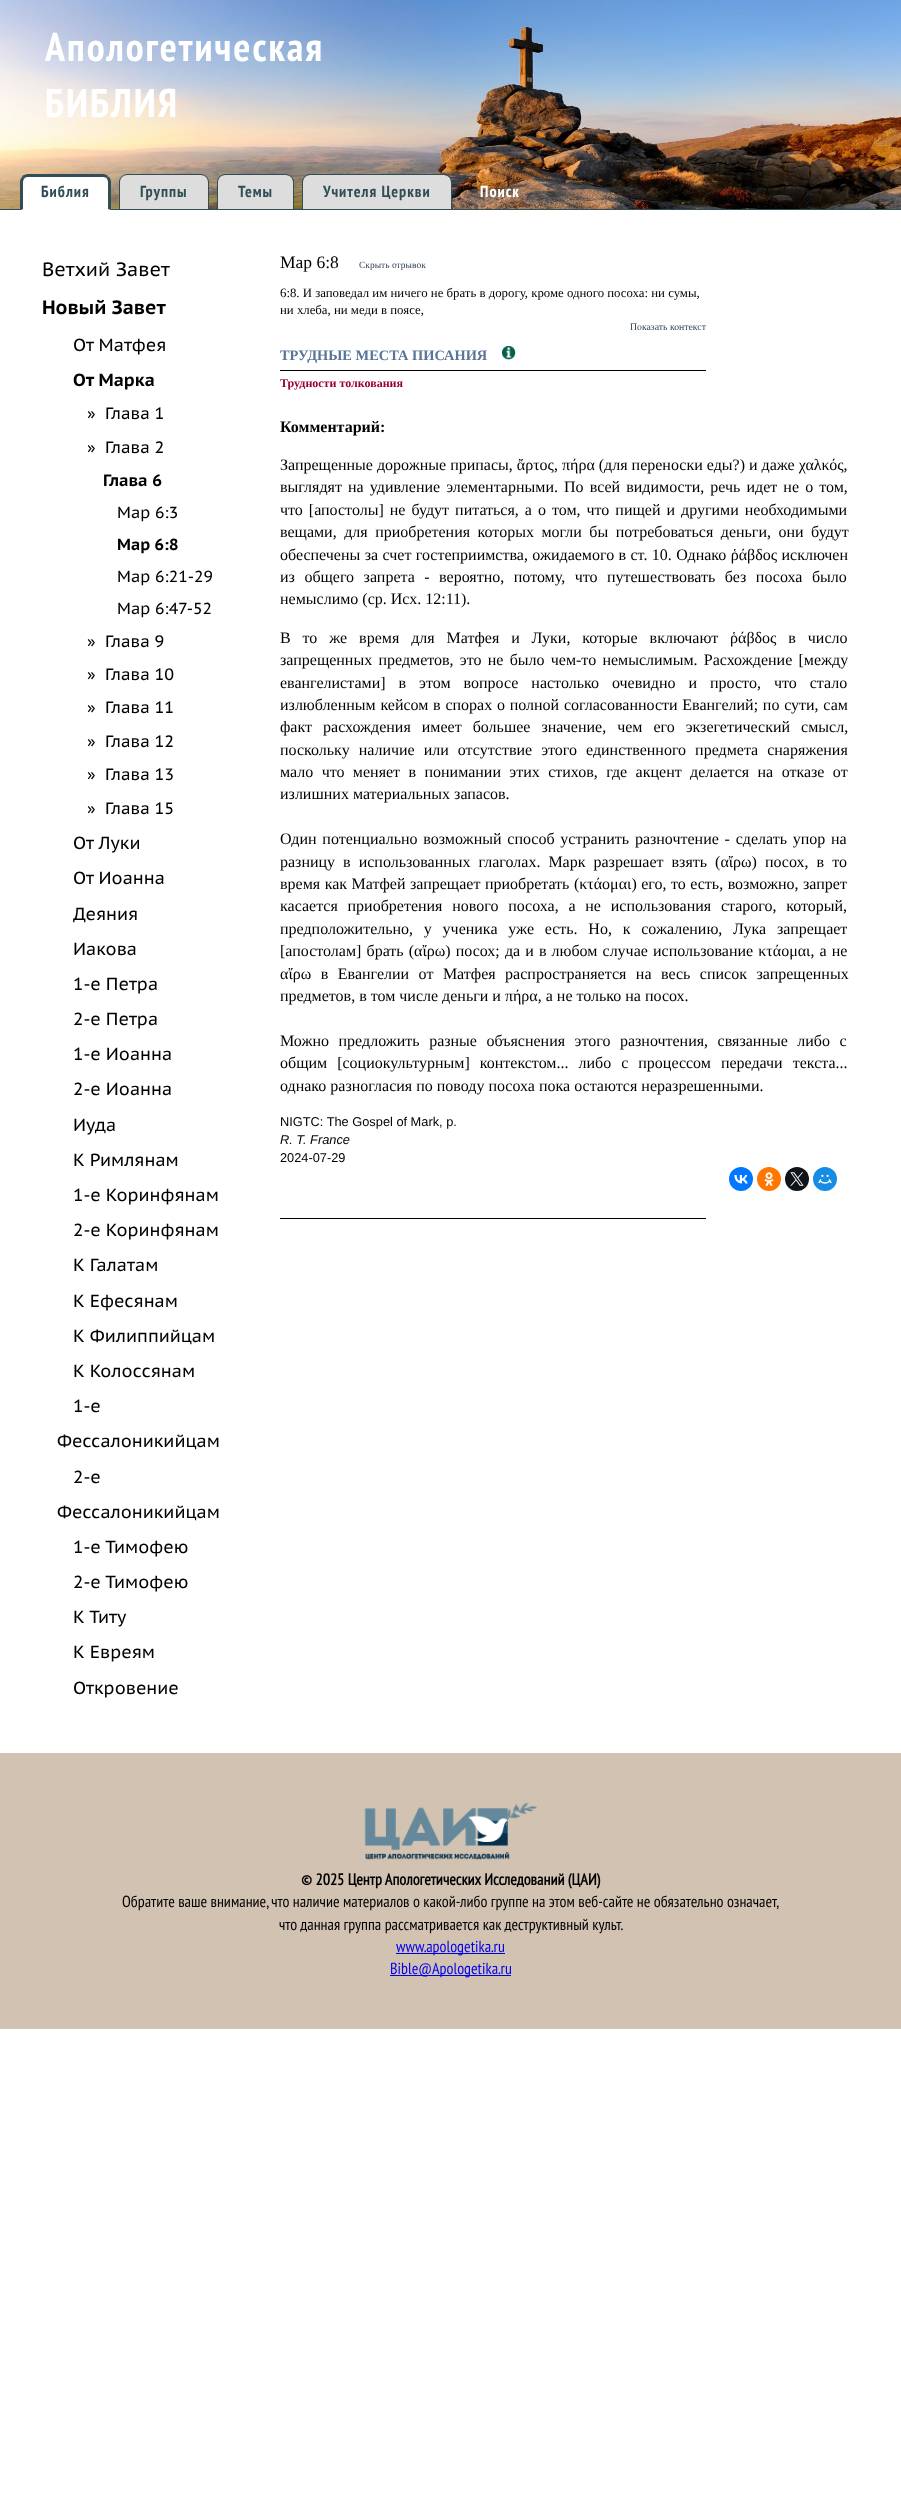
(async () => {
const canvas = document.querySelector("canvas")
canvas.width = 901
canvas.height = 2512
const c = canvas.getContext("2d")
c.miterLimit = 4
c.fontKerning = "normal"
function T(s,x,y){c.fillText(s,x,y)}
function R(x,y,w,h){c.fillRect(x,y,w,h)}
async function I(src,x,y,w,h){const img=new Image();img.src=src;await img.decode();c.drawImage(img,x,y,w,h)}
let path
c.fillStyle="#fff"
R(0,0,901,2512)
c.fillStyle="#314e57"
R(0,209,901,1)
await I("1.png",0,0,901,209)
c.letterSpacing="2px"
c.font="bold 40px PT Sans Narrow"
c.fillStyle="#fff"
T("Апологетическая",45,61)
T("БИБЛИЯ",45,117)
c.beginPath()
c.roundRect(23,177,85,32,[5,5,0,0])
c.fill()
c.fillStyle="#314e57"
path = new Path2D("M28 174c-2 0-4 1-6 2l2 2l3-1h77l3 1l1-2c-1-1-3-2-5-2z")
c.fill(path)
path = new Path2D("M111 210v-28c0-2-1-4-2.5-5.5l-2 2c1 .5 1.5 2 1.5 3.5v27z")
c.fill(path)
c.fillStyle="#fff"
path = new Path2D("M111 210l-3-1h-85l-3 1z")
c.fill(path)
c.fillStyle="#314e57"
path = new Path2D("M20 210l3-1v-27c0-1.5 .5-3 1.5-3.5l-2-2c-1.5 1.5-2.5 3.5-2.5 5.5z")
c.fill(path)
c.letterSpacing="1px"
c.font="bold 16px PT Sans Narrow"
T("Библия",41,197)
c.fillStyle="#ddd"
c.beginPath()
c.roundRect(120,175,88,34,[7,7,0,0])
c.fill()
c.fillStyle="#314e57"
path = new Path2D("M127 174h74c4 0 8 4 8 8v27h-90v-27c0-4 4-8 8-8zm0 1h74c4 0 7 3 7 7v27h-88v-27c0-4 3-7 7-7z")
c.fill(path,"evenodd")
T("Группы",140,197)
c.fillStyle="#ddd"
c.beginPath()
c.roundRect(218,175,75,34,[7,7,0,0])
c.fill()
c.fillStyle="#314e57"
path = new Path2D("M225 174h61c4 0 8 4 8 8v27h-77v-27c0-4 4-8 8-8zm0 1h61c4 0 7 3 7 7v27h-75v-27c0-4 3-7 7-7z")
c.fill(path,"evenodd")
T("Темы",238,197)
c.fillStyle="#ddd"
c.beginPath()
c.roundRect(303,175,148,34,[7,7,0,0])
c.fill()
c.fillStyle="#314e57"
path = new Path2D("M310 174h134c4 0 8 4 8 8v27h-150v-27c0-4 4-8 8-8zm0 1h134c4 0 7 3 7 7v27h-148v-27c0-4 3-7 7-7z")
c.fill(path,"evenodd")
T("Учителя Церкви",323,197)
c.fillStyle="#fff"
T("Поиск",480,197)
c.letterSpacing="0px"
c.font="19.25px PT Sans Caption"
c.fillStyle="#000"
T("Ветхий Завет",42,276)
c.font="bold 19.25px PT Sans Caption"
T("Новый Завет",42,314)
c.font="17.5px PT Sans Caption"
T("От Матфея",73,351)
c.font="bold 17.5px PT Sans Caption"
T("От Марка",73,386)
c.font="16.5px PT Sans Caption"
T("»",87,419)
T("Глава 1",105,419)
T("»",87,453)
T("Глава 2",105,453)
c.font="bold 16.5px PT Sans Caption"
T("Глава 6",103,486)
c.font="16px PT Sans Caption"
T("Мар 6:3",117,518)
c.font="bold 16px PT Sans Caption"
T("Мар 6:8",117,550)
c.font="16px PT Sans Caption"
T("Мар 6:21-29",117,582)
T("Мар 6:47-52",117,614)
c.font="16.5px PT Sans Caption"
T("»",87,647)
T("Глава 9",105,647)
T("»",87,680)
T("Глава 10",105,680)
T("»",87,713)
T("Глава 11",105,713)
T("»",87,747)
T("Глава 12",105,747)
T("»",87,780)
T("Глава 13",105,780)
T("»",87,814)
T("Глава 15",105,814)
c.font="17.5px PT Sans Caption"
T("От Луки",73,849)
T("От Иоанна",73,884)
T("Деяния",73,920)
T("Иакова",73,955)
T("1-е Петра",73,990)
T("2-е Петра",73,1025)
T("1-е Иоанна",73,1060)
T("2-е Иоанна",73,1095)
T("Иуда",73,1131)
T("К Римлянам",73,1166)
T("1-е Коринфянам",73,1201)
T("2-е Коринфянам",73,1236)
T("К Галатам",73,1271)
T("К Ефесянам",73,1307)
T("К Филиппийцам",73,1342)
T("К Колоссянам",73,1377)
T("1-е",73,1412)
T("Фессалоникийцам",57,1447)
T("2-е",73,1483)
T("Фессалоникийцам",57,1518)
T("1-е Тимофею",73,1553)
T("2-е Тимофею",73,1588)
T("К Титу",73,1623)
T("К Евреям",73,1658)
T("Откровение",73,1694)
c.font="17.5px Liberation Serif"
T("Мар 6:8",280,268)
c.font="9.5px Liberation Serif"
c.fillStyle="#324257"
T("Скрыть отрывок",359,268)
c.font="12.8px Liberation Serif"
c.fillStyle="#000"
T("6:8. И заповедал им ничего не брать в дорогу, кроме одного посоха: ни сумы,",280,297)
T("ни хлеба, ни меди в поясе,",280,314)
c.font="9.75px Liberation Serif"
c.fillStyle="#324257"
T("Показать контекст",630,330)
c.font="bold 14.4px Liberation Serif"
c.fillStyle="#587498"
T("ТРУДНЫЕ МЕСТА ПИСАНИЯ",280,360)
await I("2.png",502,346,14,14)
c.fillStyle="#000"
R(280,370,426,1)
c.font="bold 12px Liberation Serif"
c.fillStyle="#903"
T("Трудности толкования",280,387)
c.font="bold 16px Liberation Serif"
c.fillStyle="#000"
T("Комментарий:",280,432)
c.font="16px Liberation Serif"
T("Запрещенные дорожные припасы, ἄρτος, πήρα (для переноски еды?) и даже χαλκός,",280,470)
c.wordSpacing="2.1px"
T("выглядят на удивление элементарными. По всей видимости, речь идет не о том,",280,492)
c.wordSpacing="2px"
T("что [апостолы] не будут питаться, а о том, что пищей и другими необходимыми",280,515)
c.wordSpacing="3.5px"
T("вещами, для приобретения которых могли бы потребоваться деньги, они будут",280,537)
c.wordSpacing="0.4px"
T("обеспечены за счет гостеприимства, ожидаемого в ст. 10. Однако ῥάβδος исключен",280,560)
c.wordSpacing="5.5px"
T("из общего запрета - вероятно, потому, что путешествовать без посоха было",280,582)
c.wordSpacing="0px"
T("немыслимо (ср. Исх. 12:11).",280,604)
c.wordSpacing="7.9px"
T("В то же время для Матфея и Луки, которые включают ῥάβδος в число",280,643)
c.wordSpacing="2.25px"
T("запрещенных предметов, это не было чем-то немыслимым. Расхождение [между",280,665)
c.wordSpacing="9px"
T("евангелистами] в этом вопросе настолько очевидно и просто, что стало",280,688)
c.wordSpacing="0.75px"
T("излюбленным кейсом в спорах о полной согласованности Евангелий; по сути, сам",280,710)
c.wordSpacing="7px"
T("факт расхождения имеет большее значение, чем его экзегетический смысл,",280,732)
c.wordSpacing="5px"
T("поскольку наличие или отсутствие этого единственного предмета снаряжения",280,755)
c.wordSpacing="4.4px"
T("мало что меняет в понимании этих стихов, где акцент делается на отказе от",280,777)
c.wordSpacing="0px"
T("излишних материальных запасов.",280,799)
c.wordSpacing="1.75px"
T("Один потенциально возможный способ устранить разночтение - сделать упор на",280,844)
c.wordSpacing="4px"
T("разницу в использованных глаголах. Марк разрешает взять (αἴρω) посох, в то",280,867)
c.wordSpacing="0.5px"
T("время как Матфей запрещает приобретать (κτάομαι) его, то есть, возможно, запрет",280,889)
c.wordSpacing="5.75px"
T("касается приобретения нового посоха, а не использования старого, который,",280,911)
c.wordSpacing="6.75px"
T("предположительно, у ученика уже есть. Но, к сожалению, Лука запрещает",280,934)
c.wordSpacing="1.1px"
T("[апостолам] брать (αἴρω) посох; да и в любом случае использование κτάομαι, а не",280,956)
c.wordSpacing="5.5px"
T("αἴρω в Евангелии от Матфея распространяется на весь список запрещенных",280,979)
c.wordSpacing="0px"
T("предметов, в том числе деньги и πήρα, а не только на посох.",280,1001)
c.wordSpacing="5.5px"
T("Можно предложить разные объяснения этого разночтения, связанные либо с",280,1046)
c.wordSpacing="6px"
T("общим [социокультурным] контекстом... либо с процессом передачи текста...",280,1068)
c.wordSpacing="0px"
T("однако разногласия по поводу посоха пока остаются неразрешенными.",280,1091)
c.font="12.8px Liberation Sans"
T("NIGTC: The Gospel of Mark, p.",280,1126)
c.font="italic 12.8px Liberation Sans"
T("R. T. France",280,1144)
c.font="12.8px Liberation Sans"
T("2024-07-29",280,1162)
c.fillStyle="#07f"
c.beginPath()
c.arc(741,1179,12,0,7)
c.fill()
await I("3.png",734,1175,14,9)
c.fillStyle="#f70"
c.beginPath()
c.arc(769,1179,12,0,7)
c.fill()
await I("4.png",764,1172,10,14)
c.fillStyle="#0f1419"
c.beginPath()
c.arc(797,1179,12,0,7)
c.fill()
await I("5.png",790,1172,14,14)
c.fillStyle="#168de2"
c.beginPath()
c.arc(825,1179,12,0,7)
c.fill()
await I("6.png",818,1174,14,10)
c.fillStyle="#000"
R(280,1218,426,1)
c.fillStyle="#d1c2b2"
R(0,1753,901,276)
await I("7.png",364,1802,174,58)
c.font="bold 16px 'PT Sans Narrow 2'"
c.fillStyle="#000"
T("© 2025 Центр Апологетических Исследований (ЦАИ)",301,1885)
c.font="16px PT Sans Narrow"
T("Обратите ваше внимание, что наличие материалов о какой-либо группе на этом веб-сайте не обязательно означает,",122,1907)
T("что данная группа рассматривается как деструктивный культ.",279,1930)
c.fillStyle="#00e"
R(396,1953,109,1)
T("www.apologetika.ru",396,1952)
R(390,1975,121,1)
T("Bible@Apologetika.ru",390,1974)
})()
